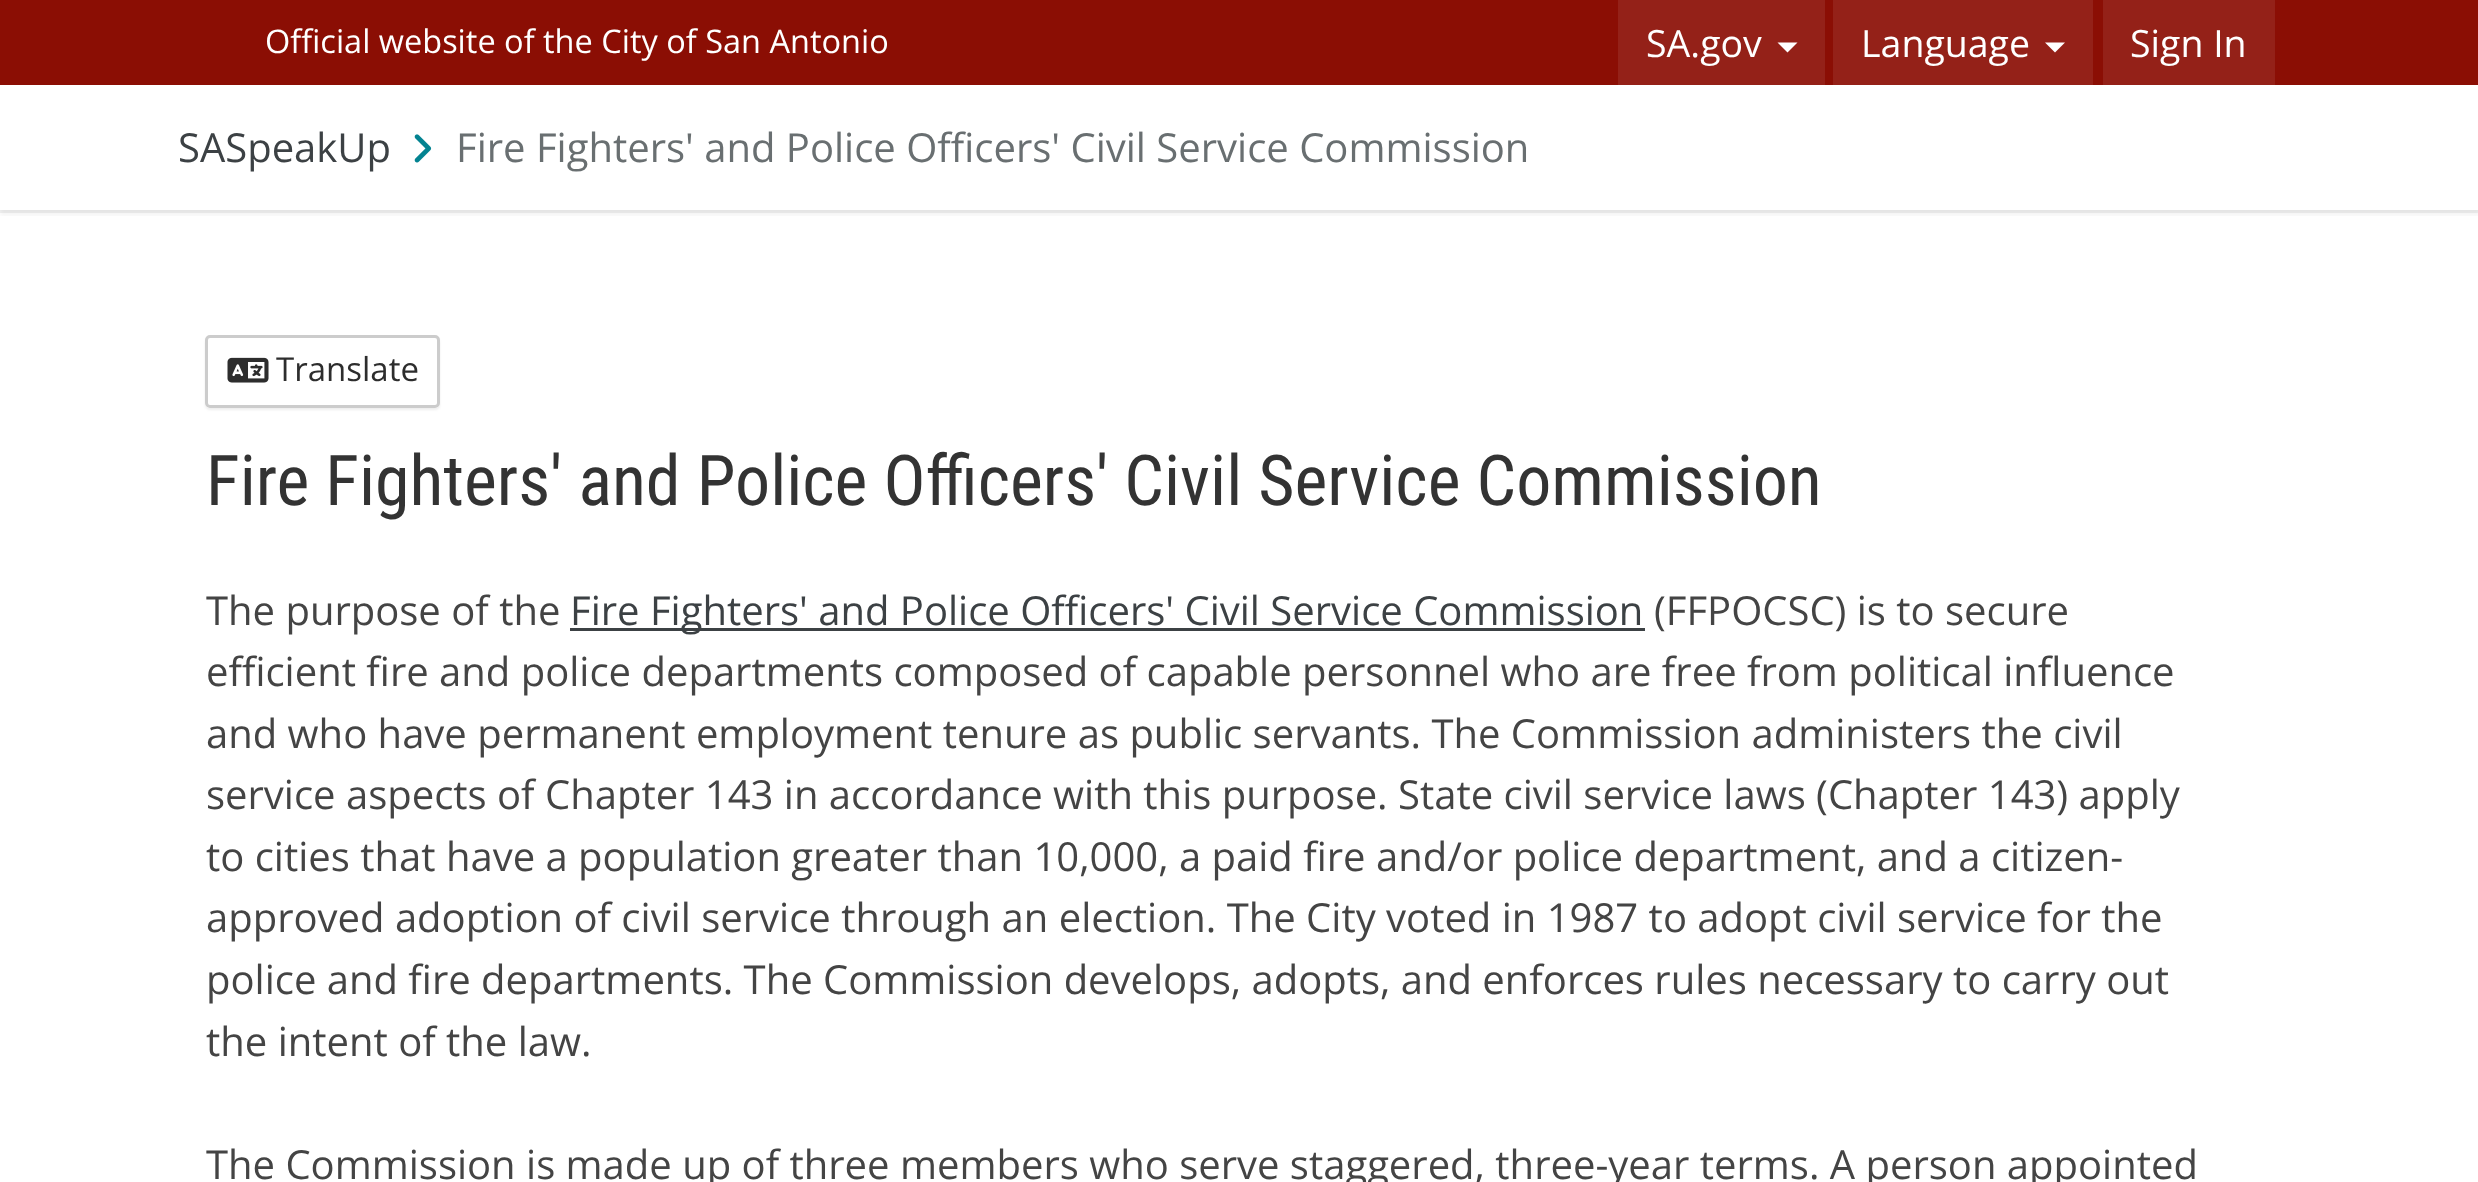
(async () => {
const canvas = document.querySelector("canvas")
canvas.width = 2478
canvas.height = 1182
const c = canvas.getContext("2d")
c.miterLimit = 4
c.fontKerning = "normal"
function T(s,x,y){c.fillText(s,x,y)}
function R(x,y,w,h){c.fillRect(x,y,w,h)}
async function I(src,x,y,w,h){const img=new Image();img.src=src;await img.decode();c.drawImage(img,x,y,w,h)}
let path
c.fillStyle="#fff"
R(0,0,2478,1182)
c.fillStyle="#8b0e04"
R(0,0,2478,85)
c.font="32.5px Open Sans"
c.fillStyle="#fff"
T("Official website of the City of San Antonio",265,53)
c.fillStyle="#942118"
R(1618,0,207,85)
c.font="37.5px Open Sans"
c.fillStyle="#fff"
T("SA.gov",1646,57)
path = new Path2D("M1777.5 42.5h20l-10 10z")
c.fill(path)
c.fillStyle="#942118"
R(1833,0,260,85)
c.fillStyle="#fff"
T("Language",1861,57)
path = new Path2D("M2045 42.5h20l-10 10z")
c.fill(path)
c.fillStyle="#942118"
R(2103,0,172,85)
c.fillStyle="#fff"
T("Sign In",2130,57)
c.fillStyle="#f2f2f2"
R(0,210,2478,3)
c.save()
c.beginPath()
c.rect(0,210,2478,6)
c.clip()
c.fillStyle="#0000000d"
c.filter="blur(2.5px)"
c.beginPath()
c.rect(0,90,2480,125)
c.fill()
c.filter="none"
c.restore()
c.font="40px Open Sans"
c.fillStyle="#3c4144"
T("SASpeakUp",178,162)
await I("1.png",414,134,18,29)
c.fillStyle="#696f71"
T("Fire Fighters' and Police Officers' Civil Service Commission",456,162)
c.save()
path = new Path2D("M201 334h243v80h-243zm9 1h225c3 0 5 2 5 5v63c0 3-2 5-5 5h-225c-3 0-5-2-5-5v-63c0-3 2-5 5-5z")
c.clip(path,"evenodd")
c.fillStyle="#5a5a5a1a"
c.filter="blur(1px)"
c.beginPath()
c.roundRect(205,338,235,72,5)
c.fill()
c.filter="none"
c.restore()
c.beginPath()
c.roundRect(206.5,336.5,232,70,3.5)
c.strokeStyle="#ccc"
c.lineWidth=3
c.stroke()
await I("2.png",227,357,42,26)
c.font="33px Open Sans"
c.fillStyle="#2d2d2d"
T("Translate",276,381)
c.font="70px Roboto Condensed"
c.fillStyle="#333"
T("Fire Fighters' and Police Officers' Civil Service Commission",206,505)
c.font="40px Open Sans"
c.fillStyle="#444"
T("The purpose of the",206,625)
c.fillStyle="#3c4144"
R(570,628,1075,3)
T("Fire Fighters' and Police Officers' Civil Service Commission",570,625)
c.fillStyle="#444"
T("(FFPOCSC) is to secure",1654,625)
T("efficient fire and police departments composed of capable personnel who are free from political influence",206,686)
T("and who have permanent employment tenure as public servants. The Commission administers the civil",206,748)
T("service aspects of Chapter 143 in accordance with this purpose. State civil service laws (Chapter 143) apply",206,809)
T("to cities that have a population greater than 10,000, a paid fire and/or police department, and a citizen-",206,871)
T("approved adoption of civil service through an election. The City voted in 1987 to adopt civil service for the",206,932)
T("police and fire departments. The Commission develops, adopts, and enforces rules necessary to carry out",206,994)
T("the intent of the law.",206,1056)
T("The Commission is made up of three members who serve staggered, three-year terms. A person appointed",206,1179)
})()
